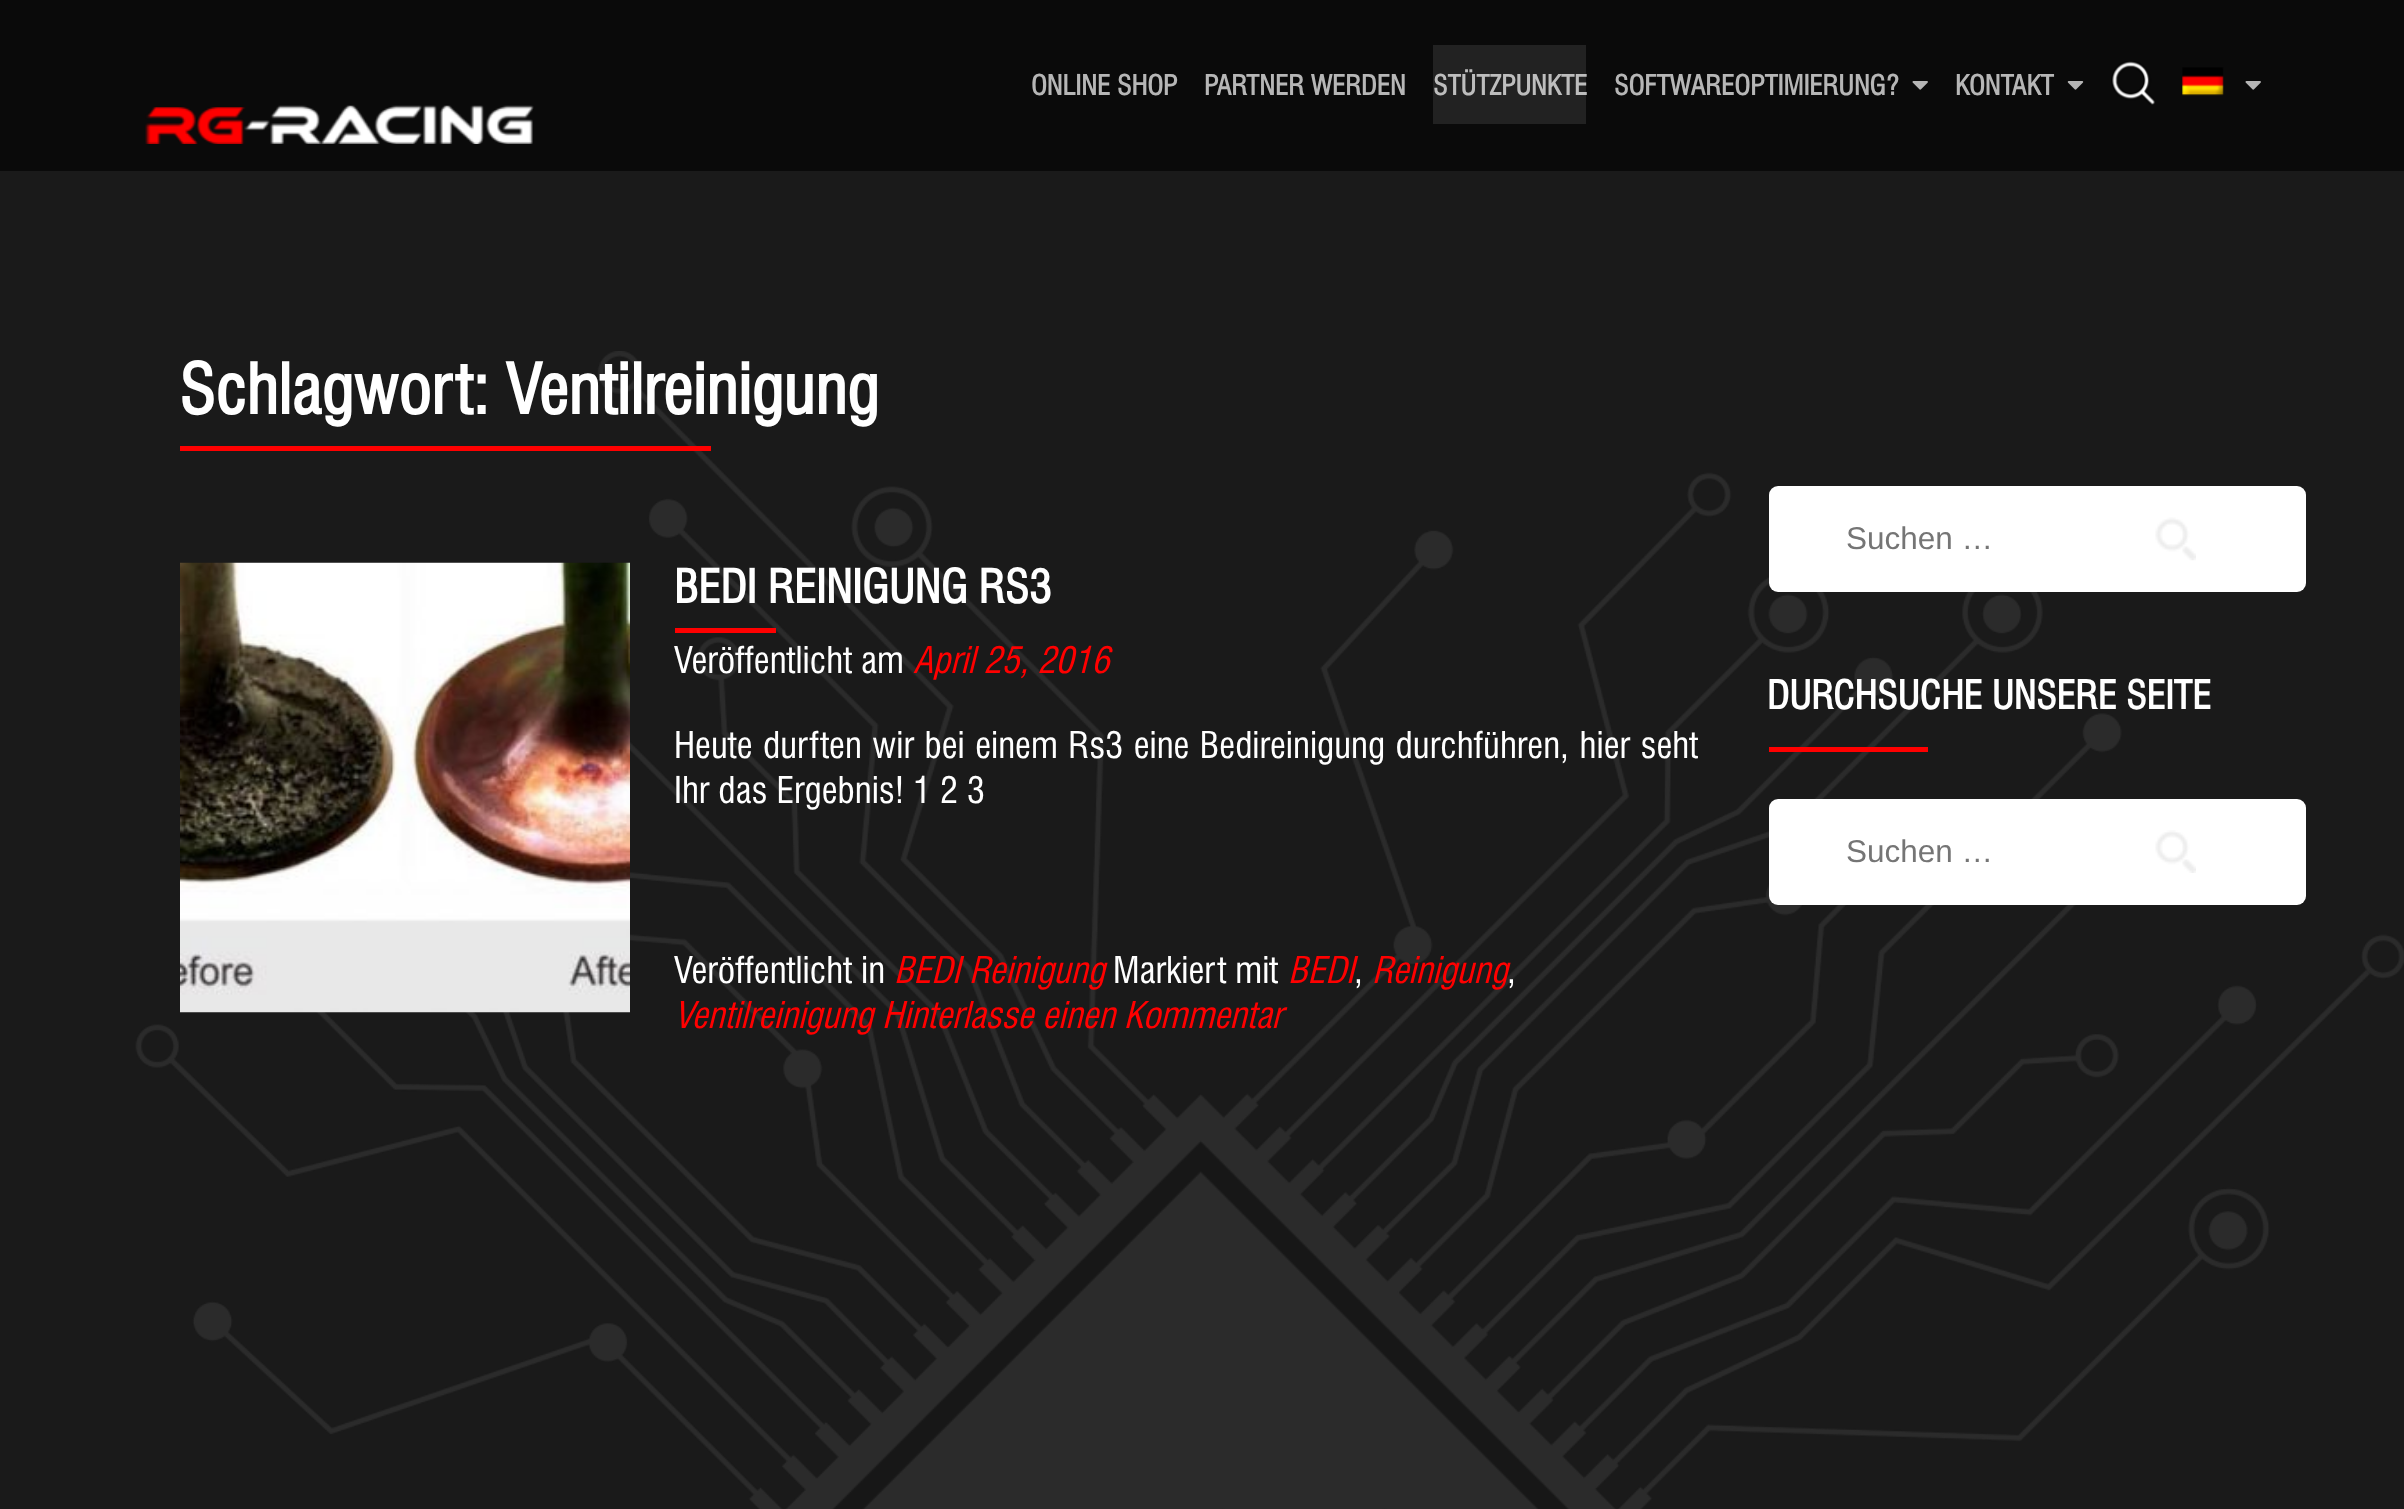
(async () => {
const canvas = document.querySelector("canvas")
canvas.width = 2404
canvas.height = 1509
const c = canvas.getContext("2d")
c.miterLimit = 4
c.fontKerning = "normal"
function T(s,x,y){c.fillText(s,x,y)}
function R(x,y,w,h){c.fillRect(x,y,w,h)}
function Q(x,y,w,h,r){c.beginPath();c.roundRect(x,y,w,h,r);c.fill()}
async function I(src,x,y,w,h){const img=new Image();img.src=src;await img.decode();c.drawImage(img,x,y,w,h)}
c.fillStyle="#1a1a1a"
R(0,0,2404,1509)
c.fillStyle="#0a0a0a"
R(0,0,2404,171)
c.font="bold 27px 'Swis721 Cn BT'"
c.fillStyle="#b6b6b6"
T("ONLINE SHOP",1031,95)
T("PARTNER WERDEN",1204,95)
c.fillStyle="#222"
R(1433,45,153,79)
c.fillStyle="#bdbdbd"
T("STÜTZPUNKTE",1433,95)
c.fillStyle="#b6b6b6"
T("SOFTWAREOPTIMIERUNG?",1614,95)
await I("1.png",1912,81,16,9)
T("KONTAKT",1955,95)
await I("2.png",2067,81,17,9)
await I("3.png",2111,61,44,44)
await I("4.png",2182,67,42,29)
await I("1.png",2245,81,16,9)
await I("5.png",145,105,389,39)
await I("6.png",135,351,2269,1158)
c.font="bold 67.5px 'Swis721 Cn BT'"
c.fillStyle="#fff"
T("Schlagwort: Ventilreinigung",179,414)
c.fillStyle="#f00"
R(180,446,531,5)
await I("7.png",180,562,450,451)
c.font="bold 45px 'Swis721 Cn BT'"
c.fillStyle="#fff"
T("BEDI REINIGUNG RS3",674,603)
c.fillStyle="#f00"
R(675,628,101,5)
c.font="36px 'Swis721 Cn BT'"
c.fillStyle="#fff"
T("Veröffentlicht am",674,673)
c.font="italic 36px 'Swis721 Cn BT'"
c.fillStyle="#f00"
T("April 25, 2016",913,673)
c.wordSpacing="1.5px"
c.font="36px 'Swis721 Cn BT'"
c.fillStyle="#fff"
T("Heute durften wir bei einem Rs3 eine Bedireinigung durchführen, hier seht",674,758)
c.wordSpacing="0px"
T("Ihr das Ergebnis! 1 2 3",674,803)
T("Veröffentlicht in",674,983)
c.font="italic 36px 'Swis721 Cn BT'"
c.fillStyle="#f00"
T("BEDI Reinigung",894,983)
c.font="36px 'Swis721 Cn BT'"
c.fillStyle="#fff"
T("Markiert mit",1113,983)
c.font="italic 36px 'Swis721 Cn BT'"
c.fillStyle="#f00"
T("BEDI",1288,983)
T("Reinigung",1372,983)
c.font="36px 'Swis721 Cn BT'"
c.fillStyle="#fff"
T(",",1354,983)
T(",",1507,983)
c.font="italic 36px 'Swis721 Cn BT'"
c.fillStyle="#f00"
T("Ventilreinigung Hinterlasse einen Kommentar",674,1028)
c.fillStyle="#fff"
Q(1769,486,537,106,9)
c.font="31.5px Liberation Sans"
c.fillStyle="#757575"
T("Suchen …",1846,549)
await I("8.png",2155,517,41,44)
c.font="bold 38.25px 'Swis721 Cn BT'"
c.fillStyle="#fff"
T("DURCHSUCHE UNSERE SEITE",1767,709)
c.fillStyle="#f00"
R(1769,747,159,5)
c.fillStyle="#fff"
Q(1769,799,537,106,9)
c.font="31.5px Liberation Sans"
c.fillStyle="#757575"
T("Suchen …",1846,862)
await I("9.png",2155,830,41,43)
})()
